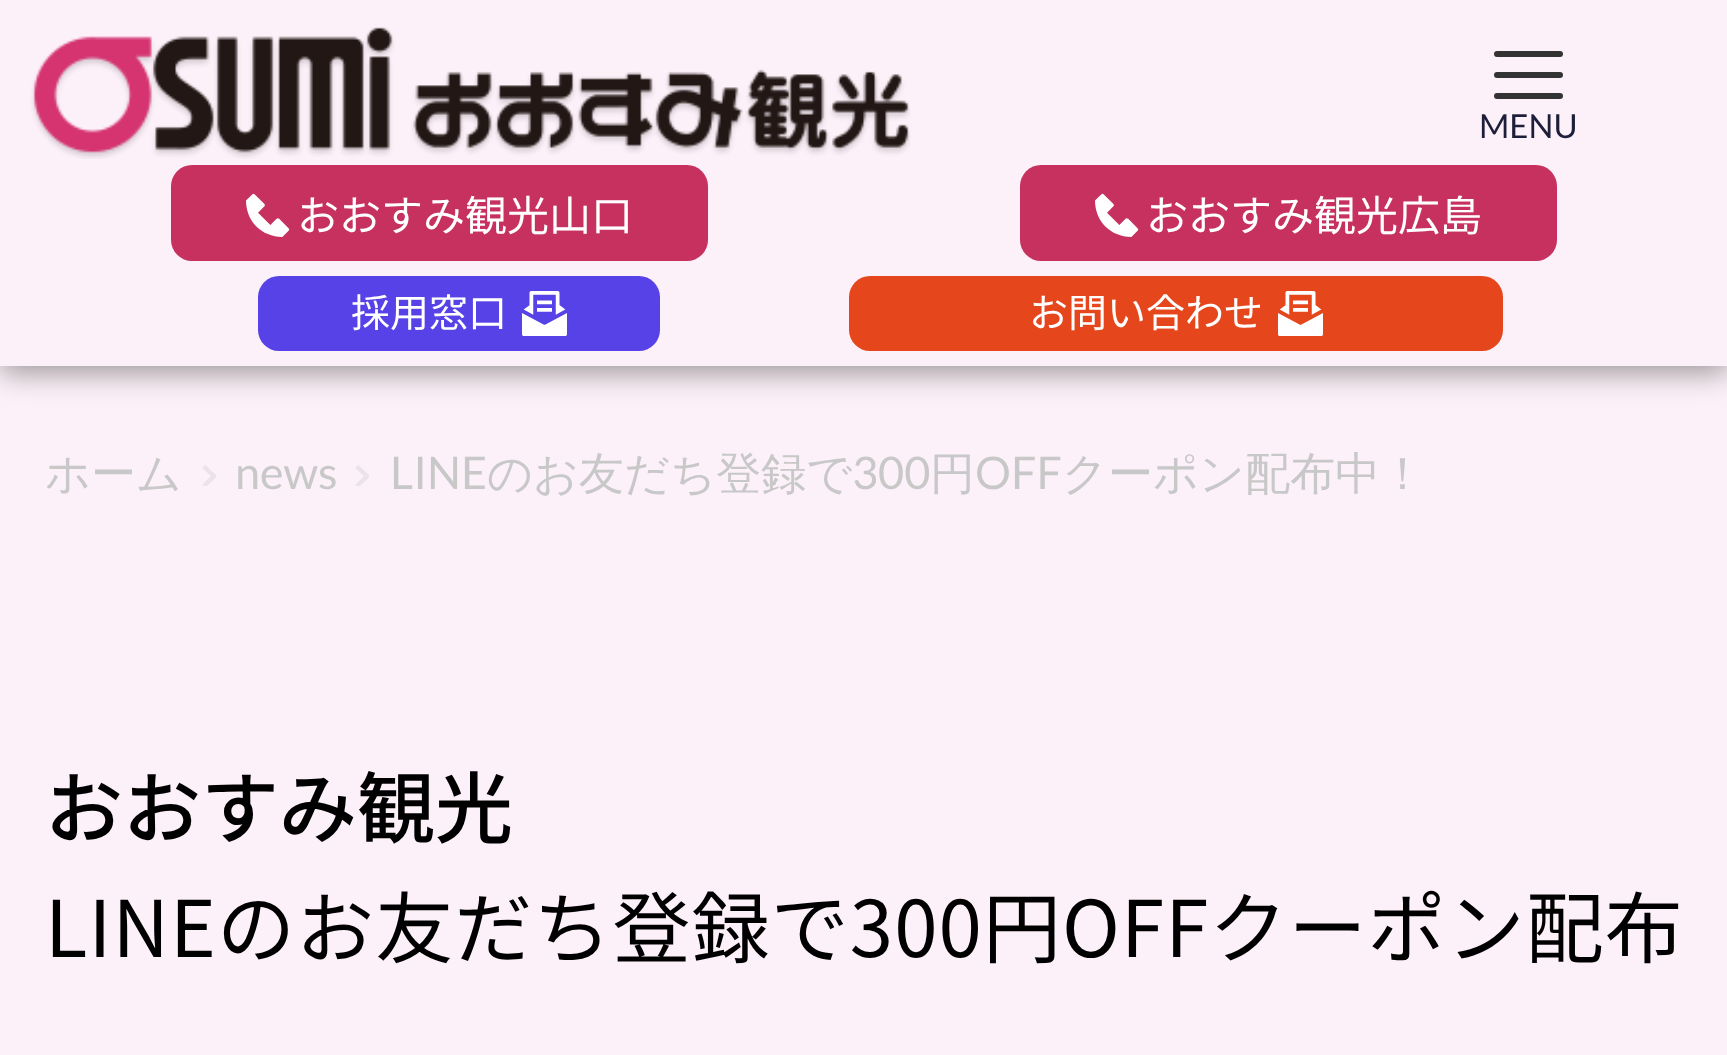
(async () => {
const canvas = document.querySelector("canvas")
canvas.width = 1727
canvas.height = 1055
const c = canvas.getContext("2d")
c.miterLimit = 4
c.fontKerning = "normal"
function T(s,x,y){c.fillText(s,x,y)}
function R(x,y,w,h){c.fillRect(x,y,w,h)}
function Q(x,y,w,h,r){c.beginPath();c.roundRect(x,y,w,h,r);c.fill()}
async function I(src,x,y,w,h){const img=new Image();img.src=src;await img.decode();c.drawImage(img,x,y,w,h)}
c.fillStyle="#fdf1f9"
R(0,0,1727,1055)
c.fillStyle="#868383de"
c.filter="blur(15px)"
c.beginPath()
c.rect(0,6,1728,366)
c.fill()
c.filter="none"
c.fillStyle="#fdf1f9"
R(0,0,1727,366)
await I("1.png",30,27,881,132)
c.fillStyle="#333"
Q(1494,51,69,6,3)
Q(1494,72,69,6,3)
Q(1494,93,69,6,3)
c.font="33px Lato"
c.fillStyle="#1d1f3a"
T("MENU",1479,138)
c.fillStyle="#c63160"
Q(171,165,537,96,21)
await I("2.png",246,193,44,44)
c.font="100 42px 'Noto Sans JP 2'"
c.fillStyle="#fff"
T("おおすみ観光山口",297,231)
c.fillStyle="#c63160"
Q(1020,165,537,96,21)
await I("2.png",1095,193,44,44)
c.fillStyle="#fff"
T("おおすみ観光広島",1146,231)
c.fillStyle="#5642e7"
Q(258,276,402,75,21)
c.font="100 39px 'Noto Sans JP 2'"
c.fillStyle="#fff"
T("採用窓口",351,327)
await I("3.png",522,291,45,45)
c.fillStyle="#e6461b"
Q(849,276,654,75,21)
c.fillStyle="#fff"
T("お問い合わせ",1029,327)
await I("4.png",1278,291,45,45)
c.font="500 45px WenQuanYi Zen Hei"
c.fillStyle="#c8c8c8"
T("ホーム",45,489)
await I("5.png",202,465,14,21)
c.font="45px Lato"
T("news",235,489)
await I("5.png",355,465,14,21)
T("LINE",390,489)
c.font="500 45px WenQuanYi Zen Hei"
T("のお友だち登録で",487,489)
c.font="45px Lato"
T("300",852,489)
c.font="500 45px WenQuanYi Zen Hei"
T("円",930,489)
c.font="45px Lato"
T("OFF",975,489)
c.font="500 45px WenQuanYi Zen Hei"
T("クーポン配布中！",1062,489)
c.font="100 78px Noto Sans JP"
c.fillStyle="#000"
T("おおすみ観光",45,837)
c.letterSpacing="1.1px"
c.font="100 78px 'Noto Sans JP 2'"
T("LINEのお友だち登録で300円OFFクーポン配布",45,957)
})()
